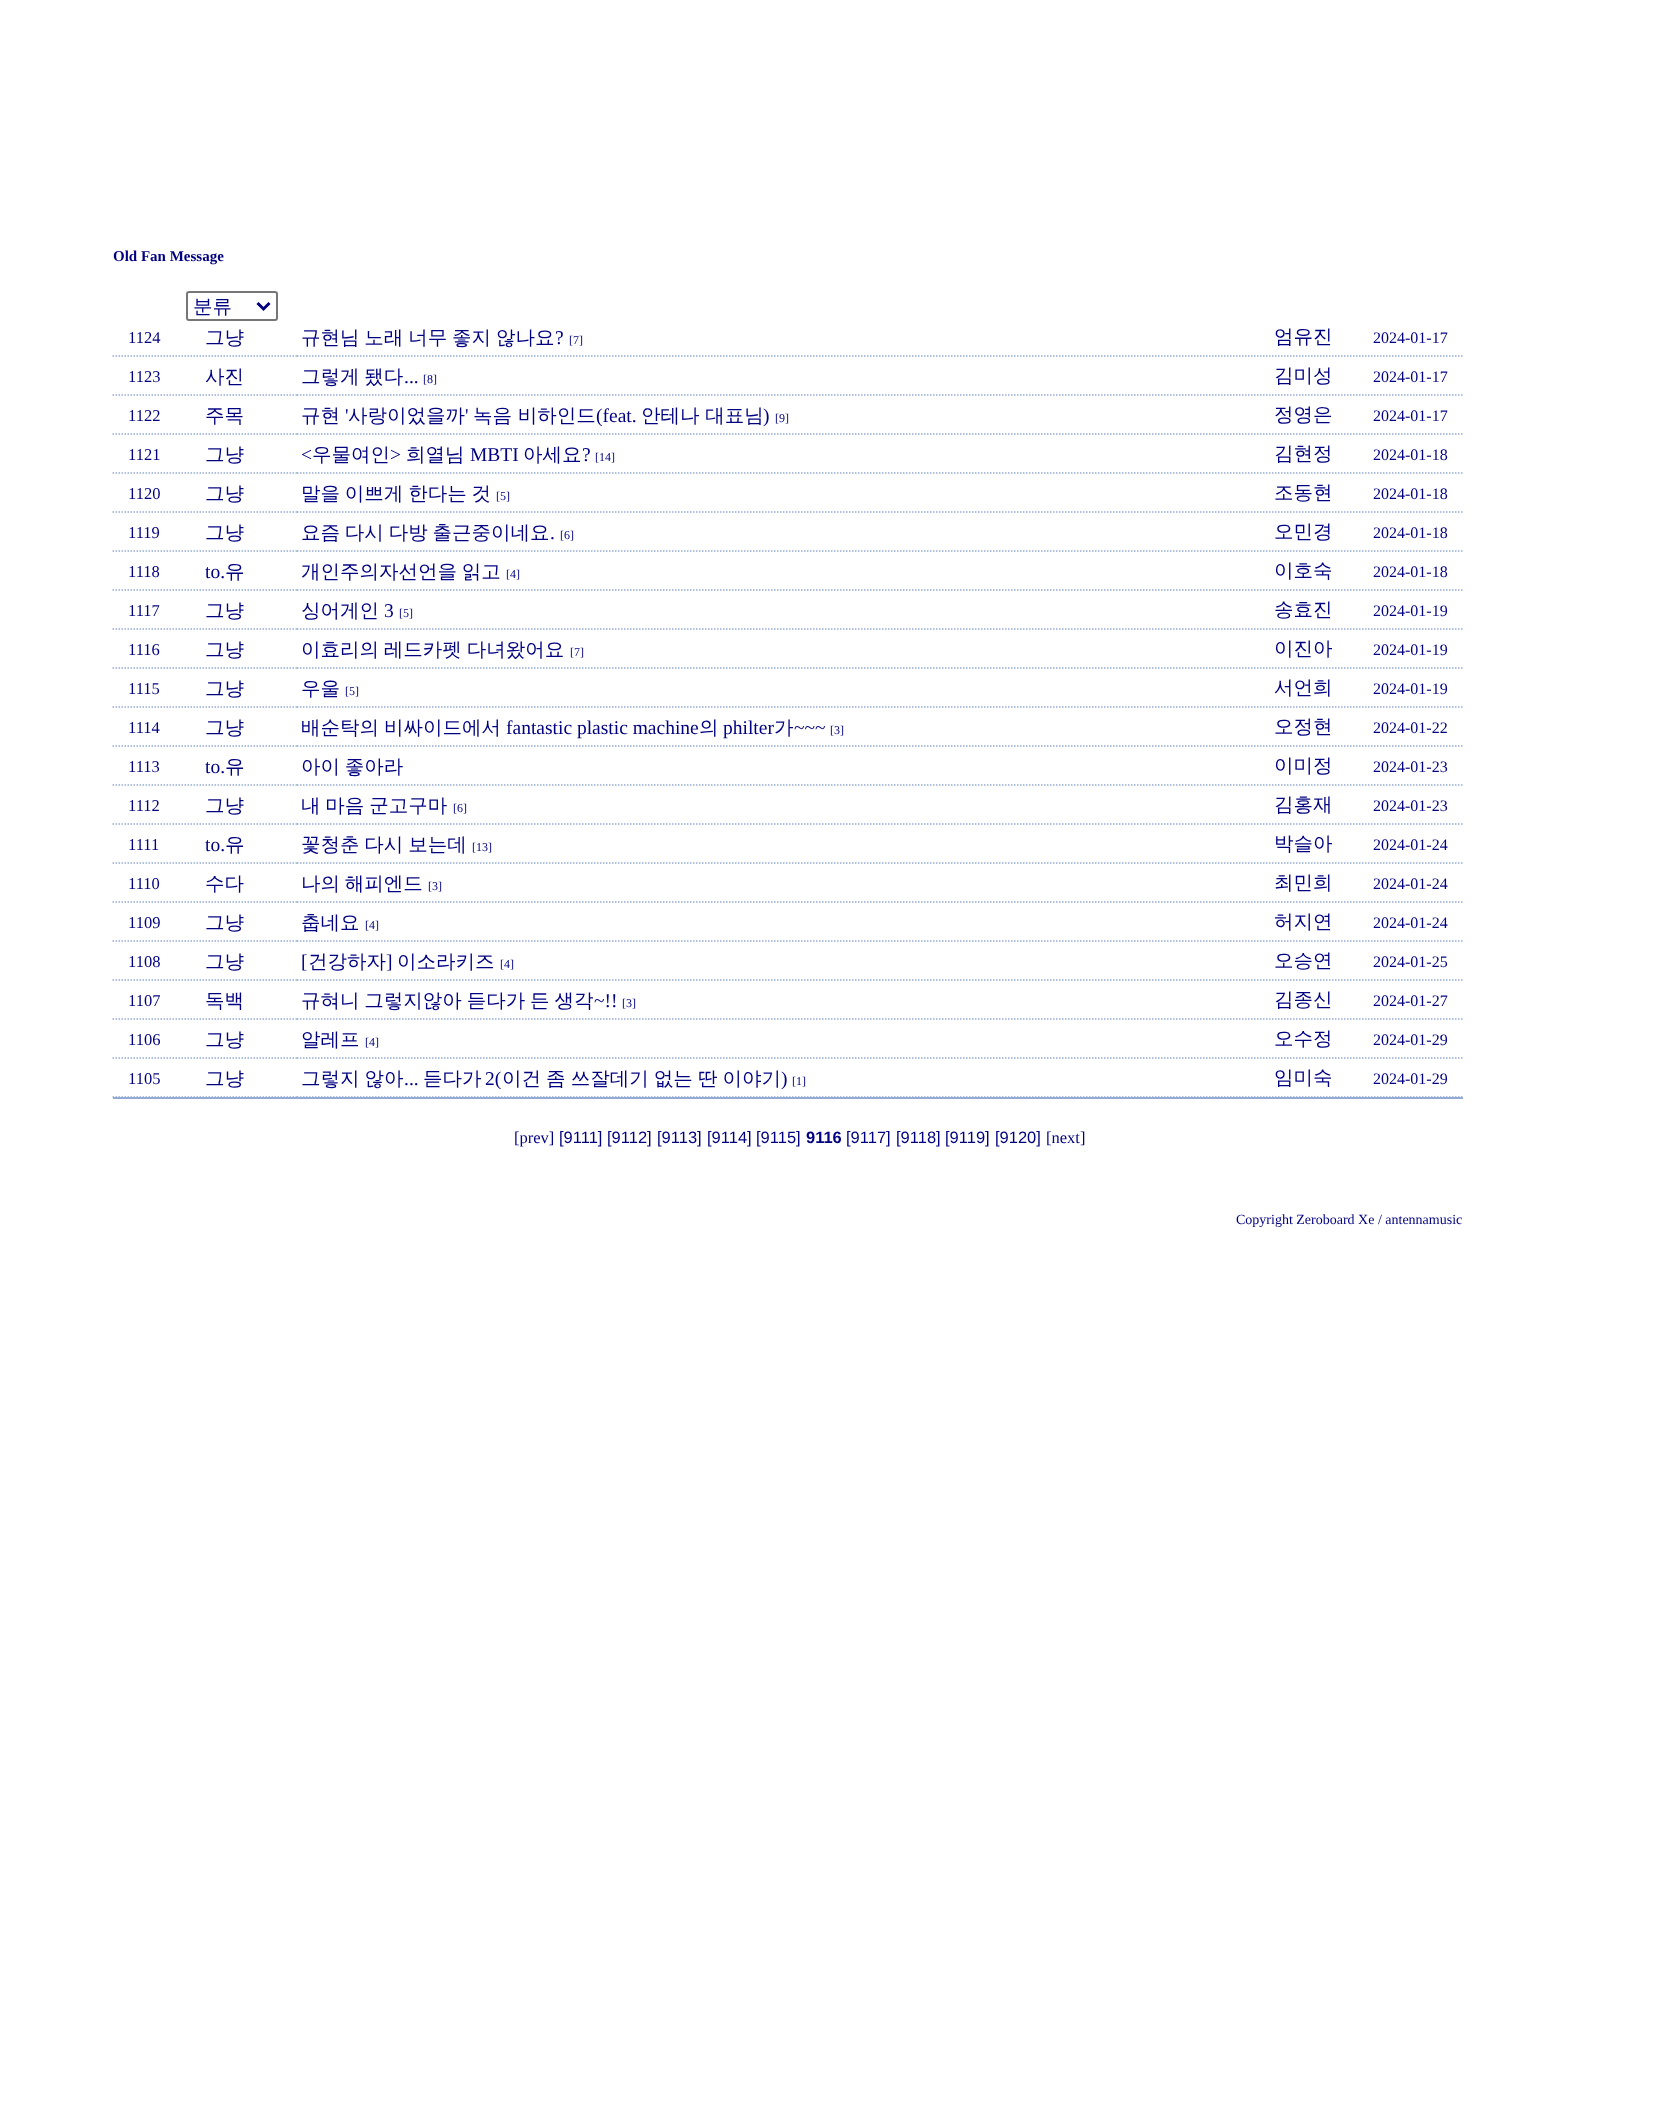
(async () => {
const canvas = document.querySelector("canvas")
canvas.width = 1679
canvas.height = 2115
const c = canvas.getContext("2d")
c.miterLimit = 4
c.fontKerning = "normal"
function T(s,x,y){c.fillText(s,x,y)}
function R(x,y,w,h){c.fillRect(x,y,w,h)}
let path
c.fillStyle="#fff"
R(0,0,1679,2115)
c.font="bold 15px Liberation Serif"
c.fillStyle="#000080"
T("Old Fan Message",113,261)
c.beginPath()
c.roundRect(187,292,90,28,2)
c.strokeStyle="#767676"
c.lineWidth=2
c.stroke()
path = new Path2D("M257.5 303l6 6l6-6")
c.strokeStyle="#000080"
c.lineWidth=3
c.stroke(path)
c.font="500 19.5px WenQuanYi Zen Hei"
T("분류",193,313)
path = new Path2D("M112.5 356h63")
c.strokeStyle="#94aad6"
c.lineWidth=1.5
c.setLineDash([1.5,1.5])
c.stroke(path)
c.font="16.5px Liberation Serif"
T("1124",128,343)
path = new Path2D("M175.5 356h121.5")
c.stroke(path)
c.font="500 19.5px WenQuanYi Zen Hei"
T("그냥",205,344)
path = new Path2D("M297 356h876")
c.stroke(path)
c.wordSpacing="-1px"
T("규현님 노래 너무 좋지 않나요",301,344)
c.wordSpacing="0px"
c.font="19.5px Liberation Serif"
T("?",555,344)
c.font="12px Liberation Serif"
T("[7]",569,344)
path = new Path2D("M1173 356h195")
c.stroke(path)
c.font="500 19.5px WenQuanYi Zen Hei"
T("엄유진",1274,343)
path = new Path2D("M1368 356h94.5")
c.stroke(path)
c.font="16px Liberation Serif"
T("2024-01-17",1373,343)
path = new Path2D("M112.5 395h63")
c.stroke(path)
c.font="16.5px Liberation Serif"
T("1123",128,382)
path = new Path2D("M175.5 395h121.5")
c.stroke(path)
c.font="500 19.5px WenQuanYi Zen Hei"
T("사진",205,383)
path = new Path2D("M297 395h876")
c.stroke(path)
c.wordSpacing="-1px"
T("그렇게 됐다",301,383)
c.wordSpacing="0px"
c.font="19.5px Liberation Serif"
T("...",404,383)
c.font="12px Liberation Serif"
T("[8]",423,383)
path = new Path2D("M1173 395h195")
c.stroke(path)
c.font="500 19.5px WenQuanYi Zen Hei"
T("김미성",1274,382)
path = new Path2D("M1368 395h94.5")
c.stroke(path)
c.font="16px Liberation Serif"
T("2024-01-17",1373,382)
path = new Path2D("M112.5 434h63")
c.stroke(path)
c.font="16.5px Liberation Serif"
T("1122",128,421)
path = new Path2D("M175.5 434h121.5")
c.stroke(path)
c.font="500 19.5px WenQuanYi Zen Hei"
T("주목",205,422)
path = new Path2D("M297 434h876")
c.stroke(path)
T("규현",301,422)
c.font="19.5px Liberation Serif"
T("'",345,422)
c.font="500 19.5px WenQuanYi Zen Hei"
T("사랑이었을까",348,422)
c.font="19.5px Liberation Serif"
T("'",465,422)
c.font="500 19.5px WenQuanYi Zen Hei"
T("녹음 비하인드",473,422)
c.font="19.5px Liberation Serif"
T("(feat.",596,422)
c.font="500 19.5px WenQuanYi Zen Hei"
T("안테나 대표님",641,422)
c.font="19.5px Liberation Serif"
T(")",763,422)
c.font="12px Liberation Serif"
T("[9]",775,422)
path = new Path2D("M1173 434h195")
c.stroke(path)
c.font="500 19.5px WenQuanYi Zen Hei"
T("정영은",1274,421)
path = new Path2D("M1368 434h94.5")
c.stroke(path)
c.font="16px Liberation Serif"
T("2024-01-17",1373,421)
path = new Path2D("M112.5 473h63")
c.stroke(path)
c.font="16.5px Liberation Serif"
T("1121",128,460)
path = new Path2D("M175.5 473h121.5")
c.stroke(path)
c.font="500 19.5px WenQuanYi Zen Hei"
T("그냥",205,461)
path = new Path2D("M297 473h876")
c.stroke(path)
c.font="19.5px Liberation Serif"
T("<",301,461)
c.font="500 19.5px WenQuanYi Zen Hei"
T("우물여인",312,461)
c.font="19.5px Liberation Serif"
T(">",390,461)
c.font="500 19.5px WenQuanYi Zen Hei"
T("희열님",406,461)
c.font="19.5px Liberation Serif"
T("MBTI",470,461)
c.font="500 19.5px WenQuanYi Zen Hei"
T("아세요",523,461)
c.font="19.5px Liberation Serif"
T("?",582,461)
c.font="12px Liberation Serif"
T("[14]",595,461)
path = new Path2D("M1173 473h195")
c.stroke(path)
c.font="500 19.5px WenQuanYi Zen Hei"
T("김현정",1274,460)
path = new Path2D("M1368 473h94.5")
c.stroke(path)
c.font="16px Liberation Serif"
T("2024-01-18",1373,460)
path = new Path2D("M112.5 512h63")
c.stroke(path)
c.font="16.5px Liberation Serif"
T("1120",128,499)
path = new Path2D("M175.5 512h121.5")
c.stroke(path)
c.font="500 19.5px WenQuanYi Zen Hei"
T("그냥",205,500)
path = new Path2D("M297 512h876")
c.stroke(path)
c.wordSpacing="-1px"
T("말을 이쁘게 한다는 것",301,500)
c.wordSpacing="0px"
c.font="12px Liberation Serif"
T("[5]",496,500)
path = new Path2D("M1173 512h195")
c.stroke(path)
c.font="500 19.5px WenQuanYi Zen Hei"
T("조동현",1274,499)
path = new Path2D("M1368 512h94.5")
c.stroke(path)
c.font="16px Liberation Serif"
T("2024-01-18",1373,499)
path = new Path2D("M112.5 551h63")
c.stroke(path)
c.font="16.5px Liberation Serif"
T("1119",128,538)
path = new Path2D("M175.5 551h121.5")
c.stroke(path)
c.font="500 19.5px WenQuanYi Zen Hei"
T("그냥",205,539)
path = new Path2D("M297 551h876")
c.stroke(path)
c.wordSpacing="-1px"
T("요즘 다시 다방 출근중이네요",301,539)
c.wordSpacing="0px"
c.font="19.5px Liberation Serif"
T(".",550,539)
c.font="12px Liberation Serif"
T("[6]",560,539)
path = new Path2D("M1173 551h195")
c.stroke(path)
c.font="500 19.5px WenQuanYi Zen Hei"
T("오민경",1274,538)
path = new Path2D("M1368 551h94.5")
c.stroke(path)
c.font="16px Liberation Serif"
T("2024-01-18",1373,538)
path = new Path2D("M112.5 590h63")
c.stroke(path)
c.font="16.5px Liberation Serif"
T("1118",128,577)
path = new Path2D("M175.5 590h121.5")
c.stroke(path)
c.font="19.5px Liberation Serif"
T("to.",205,578)
c.font="500 19.5px WenQuanYi Zen Hei"
T("유",225,578)
path = new Path2D("M297 590h876")
c.stroke(path)
c.wordSpacing="-1px"
T("개인주의자선언을 읽고",301,578)
c.wordSpacing="0px"
c.font="12px Liberation Serif"
T("[4]",506,578)
path = new Path2D("M1173 590h195")
c.stroke(path)
c.font="500 19.5px WenQuanYi Zen Hei"
T("이호숙",1274,577)
path = new Path2D("M1368 590h94.5")
c.stroke(path)
c.font="16px Liberation Serif"
T("2024-01-18",1373,577)
path = new Path2D("M112.5 629h63")
c.stroke(path)
c.font="16.5px Liberation Serif"
T("1117",128,616)
path = new Path2D("M175.5 629h121.5")
c.stroke(path)
c.font="500 19.5px WenQuanYi Zen Hei"
T("그냥",205,617)
path = new Path2D("M297 629h876")
c.stroke(path)
T("싱어게인",301,617)
c.font="19.5px Liberation Serif"
T("3",384,617)
c.font="12px Liberation Serif"
T("[5]",399,617)
path = new Path2D("M1173 629h195")
c.stroke(path)
c.font="500 19.5px WenQuanYi Zen Hei"
T("송효진",1274,616)
path = new Path2D("M1368 629h94.5")
c.stroke(path)
c.font="16px Liberation Serif"
T("2024-01-19",1373,616)
path = new Path2D("M112.5 668h63")
c.stroke(path)
c.font="16.5px Liberation Serif"
T("1116",128,655)
path = new Path2D("M175.5 668h121.5")
c.stroke(path)
c.font="500 19.5px WenQuanYi Zen Hei"
T("그냥",205,656)
path = new Path2D("M297 668h876")
c.stroke(path)
c.wordSpacing="-1px"
T("이효리의 레드카펫 다녀왔어요",301,656)
c.wordSpacing="0px"
c.font="12px Liberation Serif"
T("[7]",570,656)
path = new Path2D("M1173 668h195")
c.stroke(path)
c.font="500 19.5px WenQuanYi Zen Hei"
T("이진아",1274,655)
path = new Path2D("M1368 668h94.5")
c.stroke(path)
c.font="16px Liberation Serif"
T("2024-01-19",1373,655)
path = new Path2D("M112.5 707h63")
c.stroke(path)
c.font="16.5px Liberation Serif"
T("1115",128,694)
path = new Path2D("M175.5 707h121.5")
c.stroke(path)
c.font="500 19.5px WenQuanYi Zen Hei"
T("그냥",205,695)
path = new Path2D("M297 707h876")
c.stroke(path)
T("우울",301,695)
c.font="12px Liberation Serif"
T("[5]",345,695)
path = new Path2D("M1173 707h195")
c.stroke(path)
c.font="500 19.5px WenQuanYi Zen Hei"
T("서언희",1274,694)
path = new Path2D("M1368 707h94.5")
c.stroke(path)
c.font="16px Liberation Serif"
T("2024-01-19",1373,694)
path = new Path2D("M112.5 746h63")
c.stroke(path)
c.font="16.5px Liberation Serif"
T("1114",128,733)
path = new Path2D("M175.5 746h121.5")
c.stroke(path)
c.font="500 19.5px WenQuanYi Zen Hei"
T("그냥",205,734)
path = new Path2D("M297 746h876")
c.stroke(path)
T("배순탁의",301,734)
T("비싸이드에서",384,734)
c.font="19.5px Liberation Serif"
T("fantastic plastic machine",506,734)
c.font="500 19.5px WenQuanYi Zen Hei"
T("의",699,734)
c.font="19.5px Liberation Serif"
T("philter",723,734)
c.font="500 19.5px WenQuanYi Zen Hei"
T("가",774,734)
c.font="19.5px Liberation Serif"
T("~~~",794,734)
c.font="12px Liberation Serif"
T("[3]",830,734)
path = new Path2D("M1173 746h195")
c.stroke(path)
c.font="500 19.5px WenQuanYi Zen Hei"
T("오정현",1274,733)
path = new Path2D("M1368 746h94.5")
c.stroke(path)
c.font="16px Liberation Serif"
T("2024-01-22",1373,733)
path = new Path2D("M112.5 785h63")
c.stroke(path)
c.font="16.5px Liberation Serif"
T("1113",128,772)
path = new Path2D("M175.5 785h121.5")
c.stroke(path)
c.font="19.5px Liberation Serif"
T("to.",205,773)
c.font="500 19.5px WenQuanYi Zen Hei"
T("유",225,773)
path = new Path2D("M297 785h876")
c.stroke(path)
c.wordSpacing="-1px"
T("아이 좋아라",301,773)
path = new Path2D("M1173 785h195")
c.stroke(path)
c.wordSpacing="0px"
T("이미정",1274,772)
path = new Path2D("M1368 785h94.5")
c.stroke(path)
c.font="16px Liberation Serif"
T("2024-01-23",1373,772)
path = new Path2D("M112.5 824h63")
c.stroke(path)
c.font="16.5px Liberation Serif"
T("1112",128,811)
path = new Path2D("M175.5 824h121.5")
c.stroke(path)
c.font="500 19.5px WenQuanYi Zen Hei"
T("그냥",205,812)
path = new Path2D("M297 824h876")
c.stroke(path)
c.wordSpacing="-1px"
T("내 마음 군고구마",301,812)
c.wordSpacing="0px"
c.font="12px Liberation Serif"
T("[6]",453,812)
path = new Path2D("M1173 824h195")
c.stroke(path)
c.font="500 19.5px WenQuanYi Zen Hei"
T("김홍재",1274,811)
path = new Path2D("M1368 824h94.5")
c.stroke(path)
c.font="16px Liberation Serif"
T("2024-01-23",1373,811)
path = new Path2D("M112.5 863h63")
c.stroke(path)
c.font="16.5px Liberation Serif"
T("1111",128,850)
path = new Path2D("M175.5 863h121.5")
c.stroke(path)
c.font="19.5px Liberation Serif"
T("to.",205,851)
c.font="500 19.5px WenQuanYi Zen Hei"
T("유",225,851)
path = new Path2D("M297 863h876")
c.stroke(path)
c.wordSpacing="-1px"
T("꽃청춘 다시 보는데",301,851)
c.wordSpacing="0px"
c.font="12px Liberation Serif"
T("[13]",472,851)
path = new Path2D("M1173 863h195")
c.stroke(path)
c.font="500 19.5px WenQuanYi Zen Hei"
T("박슬아",1274,850)
path = new Path2D("M1368 863h94.5")
c.stroke(path)
c.font="16px Liberation Serif"
T("2024-01-24",1373,850)
path = new Path2D("M112.5 902h63")
c.stroke(path)
c.font="16.5px Liberation Serif"
T("1110",128,889)
path = new Path2D("M175.5 902h121.5")
c.stroke(path)
c.font="500 19.5px WenQuanYi Zen Hei"
T("수다",205,890)
path = new Path2D("M297 902h876")
c.stroke(path)
c.wordSpacing="-1px"
T("나의 해피엔드",301,890)
c.wordSpacing="0px"
c.font="12px Liberation Serif"
T("[3]",428,890)
path = new Path2D("M1173 902h195")
c.stroke(path)
c.font="500 19.5px WenQuanYi Zen Hei"
T("최민희",1274,889)
path = new Path2D("M1368 902h94.5")
c.stroke(path)
c.font="16px Liberation Serif"
T("2024-01-24",1373,889)
path = new Path2D("M112.5 941h63")
c.stroke(path)
c.font="16.5px Liberation Serif"
T("1109",128,928)
path = new Path2D("M175.5 941h121.5")
c.stroke(path)
c.font="500 19.5px WenQuanYi Zen Hei"
T("그냥",205,929)
path = new Path2D("M297 941h876")
c.stroke(path)
T("춥네요",301,929)
c.font="12px Liberation Serif"
T("[4]",365,929)
path = new Path2D("M1173 941h195")
c.stroke(path)
c.font="500 19.5px WenQuanYi Zen Hei"
T("허지연",1274,928)
path = new Path2D("M1368 941h94.5")
c.stroke(path)
c.font="16px Liberation Serif"
T("2024-01-24",1373,928)
path = new Path2D("M112.5 980h63")
c.stroke(path)
c.font="16.5px Liberation Serif"
T("1108",128,967)
path = new Path2D("M175.5 980h121.5")
c.stroke(path)
c.font="500 19.5px WenQuanYi Zen Hei"
T("그냥",205,968)
path = new Path2D("M297 980h876")
c.stroke(path)
c.font="19.5px Liberation Serif"
T("[",301,968)
c.font="500 19.5px WenQuanYi Zen Hei"
T("건강하자",308,968)
c.font="19.5px Liberation Serif"
T("]",386,968)
c.font="500 19.5px WenQuanYi Zen Hei"
T("이소라키즈",397,968)
c.font="12px Liberation Serif"
T("[4]",500,968)
path = new Path2D("M1173 980h195")
c.stroke(path)
c.font="500 19.5px WenQuanYi Zen Hei"
T("오승연",1274,967)
path = new Path2D("M1368 980h94.5")
c.stroke(path)
c.font="16px Liberation Serif"
T("2024-01-25",1373,967)
path = new Path2D("M112.5 1019h63")
c.stroke(path)
c.font="16.5px Liberation Serif"
T("1107",128,1006)
path = new Path2D("M175.5 1019h121.5")
c.stroke(path)
c.font="500 19.5px WenQuanYi Zen Hei"
T("독백",205,1007)
path = new Path2D("M297 1019h876")
c.stroke(path)
c.wordSpacing="-1px"
T("규혀니 그렇지않아 듣다가 든 생각",301,1007)
c.wordSpacing="0px"
c.font="19.5px Liberation Serif"
T("~!!",594,1007)
c.font="12px Liberation Serif"
T("[3]",622,1007)
path = new Path2D("M1173 1019h195")
c.stroke(path)
c.font="500 19.5px WenQuanYi Zen Hei"
T("김종신",1274,1006)
path = new Path2D("M1368 1019h94.5")
c.stroke(path)
c.font="16px Liberation Serif"
T("2024-01-27",1373,1006)
path = new Path2D("M112.5 1058h63")
c.stroke(path)
c.font="16.5px Liberation Serif"
T("1106",128,1045)
path = new Path2D("M175.5 1058h121.5")
c.stroke(path)
c.font="500 19.5px WenQuanYi Zen Hei"
T("그냥",205,1046)
path = new Path2D("M297 1058h876")
c.stroke(path)
T("알레프",301,1046)
c.font="12px Liberation Serif"
T("[4]",365,1046)
path = new Path2D("M1173 1058h195")
c.stroke(path)
c.font="500 19.5px WenQuanYi Zen Hei"
T("오수정",1274,1045)
path = new Path2D("M1368 1058h94.5")
c.stroke(path)
c.font="16px Liberation Serif"
T("2024-01-29",1373,1045)
path = new Path2D("M112.5 1097h63")
c.stroke(path)
c.font="16.5px Liberation Serif"
T("1105",128,1084)
path = new Path2D("M175.5 1097h121.5")
c.stroke(path)
c.font="500 19.5px WenQuanYi Zen Hei"
T("그냥",205,1085)
path = new Path2D("M297 1097h876")
c.stroke(path)
c.wordSpacing="-0.75px"
T("그렇지 않아",301,1085)
c.wordSpacing="0px"
c.font="19.5px Liberation Serif"
T("...",404,1085)
c.font="500 19.5px WenQuanYi Zen Hei"
T("듣다가",423,1085)
c.font="19.5px Liberation Serif"
T("2(",485,1085)
c.wordSpacing="-0.75px"
c.font="500 19.5px WenQuanYi Zen Hei"
T("이건 좀 쓰잘데기 없는 딴 이야기",502,1085)
c.wordSpacing="0px"
c.font="19.5px Liberation Serif"
T(")",781,1085)
c.font="12px Liberation Serif"
T("[1]",792,1085)
path = new Path2D("M1173 1097h195")
c.stroke(path)
c.font="500 19.5px WenQuanYi Zen Hei"
T("임미숙",1274,1084)
path = new Path2D("M1368 1097h94.5")
c.stroke(path)
c.font="16px Liberation Serif"
T("2024-01-29",1373,1084)
c.fillStyle="#94aad6"
R(113,1097,1350,2)
c.font="16.5px Liberation Serif"
c.fillStyle="#000080"
T("[prev]",514,1143)
c.font="16.5px Liberation Sans"
T("[9111] [9112]",559,1143)
T("[9113]",657,1143)
T("[9114]",707,1143)
T("[9115]",756,1143)
c.font="bold 16.5px Liberation Sans"
T("9116",806,1143)
c.font="16.5px Liberation Sans"
T("[9117]",846,1143)
T("[9118]",896,1143)
T("[9119]",945,1143)
T("[9120]",995,1143)
c.font="16.5px Liberation Serif"
T("[next]",1046,1143)
c.font="14px Liberation Serif"
T("Copyright Zeroboard Xe / antennamusic",1236,1224)
})()
